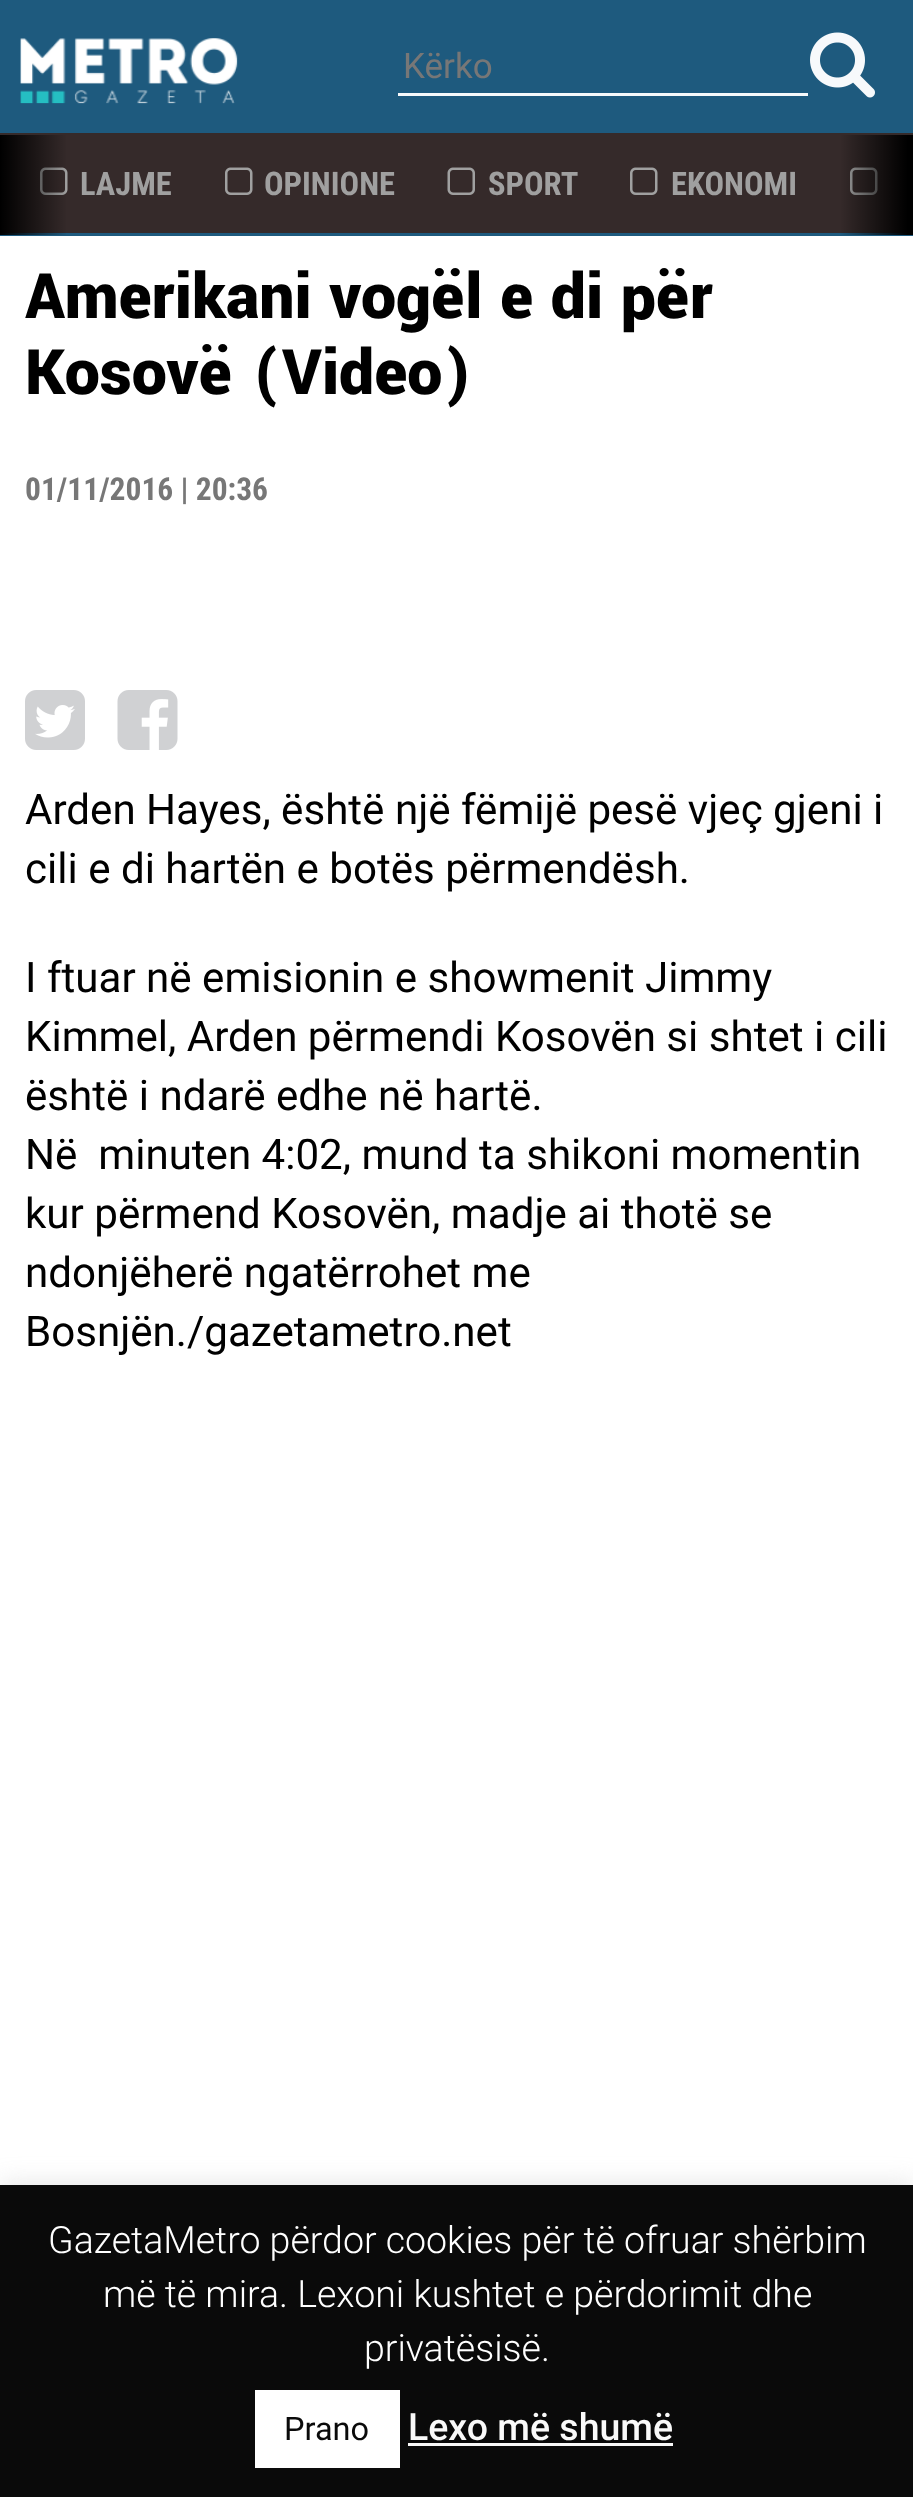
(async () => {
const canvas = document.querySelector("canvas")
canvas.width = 913
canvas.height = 2497
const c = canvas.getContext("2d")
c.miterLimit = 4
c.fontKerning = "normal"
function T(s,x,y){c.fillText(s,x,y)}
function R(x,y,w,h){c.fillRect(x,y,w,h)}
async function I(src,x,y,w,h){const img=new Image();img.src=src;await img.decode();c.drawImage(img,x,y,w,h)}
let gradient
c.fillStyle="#fff"
R(0,0,913,2497)
c.fillStyle="#1e5a7e"
R(0,0,913,133)
R(0,233,913,3)
await I("1.png",20,38,218,66)
c.fillStyle="#f7f9fb"
R(398,93,410,3)
c.font="35px Roboto"
c.fillStyle="#777"
T("Kërko",403,78)
await I("2.png",810,32,65,66)
c.fillStyle="#352a2a"
R(0,133,913,100)
await I("3.png",40,167,28,28)
gradient = c.createLinearGradient(75,185,0,185)
gradient.addColorStop(.1,"#00000000")
gradient.addColorStop(1,"#000")
c.fillStyle = gradient
R(0,135,66,100)
c.font="bold 32.5px Roboto Condensed"
c.fillStyle="#a0a0a0"
T("LAJME",80,195)
await I("3.png",225,167,28,28)
T("OPINIONE",264,195)
await I("4.png",447,167,28,28)
T("SPORT",488,195)
await I("3.png",630,167,28,28)
T("EKONOMI",671,195)
await I("3.png",850,167,28,28)
gradient = c.createLinearGradient(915,185,840,185)
gradient.addColorStop(.1,"#000")
gradient.addColorStop(1,"#00000000")
c.fillStyle = gradient
R(841,135,72,100)
c.font="900 69.5px Yantramanav"
c.fillStyle="#000"
T("Amerikani vogël e di për",25,318)
T("Kosovë (Video)",25,394)
c.font="bold 31.5px Roboto Condensed"
c.fillStyle="#777"
T("01/11/2016 | 20:36",25,500)
await I("5.png",25,690,60,60)
await I("6.png",117,690,61,60)
c.font="42.1px Roboto"
c.fillStyle="#000"
T("Arden Hayes, është një fëmijë pesë vjeç gjeni i",25,824)
T("cili e di hartën e botës përmendësh.",25,883)
T("I ftuar në emisionin e showmenit Jimmy",25,992)
T("Kimmel, Arden përmendi Kosovën si shtet i cili",25,1051)
T("është i ndarë edhe në hartë.",25,1110)
T("Në  minuten 4:02, mund ta shikoni momentin",25,1169)
T("kur përmend Kosovën, madje ai thotë se",25,1228)
T("ndonjëherë ngatërrohet me",25,1287)
T("Bosnjën./gazetametro.net",25,1346)
c.fillStyle="#acabab4d"
c.filter="blur(12.5px)"
c.beginPath()
c.rect(0,2183,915,312)
c.fill()
c.filter="none"
c.fillStyle="#0a0a0a"
R(0,2185,913,312)
c.font="300 37.5px Roboto"
c.fillStyle="#fff"
T("GazetaMetro përdor cookies për të ofruar shërbim",48,2253)
T("më të mira. Lexoni kushtet e përdorimit dhe",103,2307)
T("privatësisë.",364,2361)
R(255,2390,145,78)
c.font="32.5px Roboto"
c.fillStyle="#0a0a0a"
T("Prano",284,2440)
c.font="500 37.5px Roboto"
c.fillStyle="#f9f9f9"
T("Lexo më shumë",408,2440)
R(408,2443,265,3)
})()
